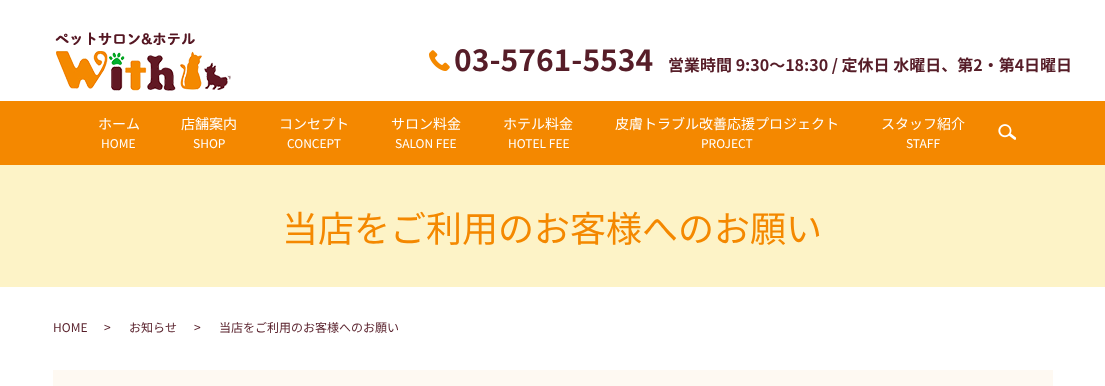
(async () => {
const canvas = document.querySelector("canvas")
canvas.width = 1105
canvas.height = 386
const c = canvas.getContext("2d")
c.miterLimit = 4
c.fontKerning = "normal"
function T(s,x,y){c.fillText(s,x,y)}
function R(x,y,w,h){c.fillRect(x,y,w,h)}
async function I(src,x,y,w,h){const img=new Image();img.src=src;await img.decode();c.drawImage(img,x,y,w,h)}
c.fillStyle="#fff"
R(0,0,1105,386)
await I("1.png",55,32,176,59)
await I("2.png",429,50,21,21)
c.font="bold 30px Noto Sans JP"
c.fillStyle="#561d28"
T("03-5761-5534",454,71)
c.font="bold 16px Noto Sans JP"
T("営業時間 9:30～18:30 / 定休日 水曜日、第2・第4日曜日",668,71)
c.fillStyle="#f48800"
R(0,101,1105,64)
c.font="14px Noto Sans JP"
c.fillStyle="#fff"
T("ホーム",98,129)
c.font="12px Noto Sans JP"
T("HOME",101,148)
c.font="14px Noto Sans JP"
T("店舗案内",181,129)
c.font="12px Noto Sans JP"
T("SHOP",193,148)
c.font="14px Noto Sans JP"
T("コンセプト",279,129)
c.font="12px Noto Sans JP"
T("CONCEPT",287,148)
c.font="14px Noto Sans JP"
T("サロン料金",391,129)
c.font="12px Noto Sans JP"
T("SALON FEE",395,148)
c.font="14px Noto Sans JP"
T("ホテル料金",503,129)
c.font="12px Noto Sans JP"
T("HOTEL FEE",508,148)
c.font="14px Noto Sans JP"
T("皮膚トラブル改善応援プロジェクト",615,129)
c.font="12px Noto Sans JP"
T("PROJECT",701,148)
c.font="14px Noto Sans JP"
T("スタッフ紹介",881,129)
c.font="12px Noto Sans JP"
T("STAFF",906,148)
await I("3.png",998,124,18,16)
c.fillStyle="#fdf3c7"
R(0,165,1105,122)
c.font="36px Noto Sans JP"
c.fillStyle="#f48800"
T("当店をご利用のお客様へのお願い",282,242)
c.font="12px Noto Sans JP"
c.fillStyle="#561d28"
T("HOME",53,332)
T(">",104,332)
T("お知らせ",129,332)
T(">",194,332)
T("当店をご利用のお客様へのお願い",219,332)
c.fillStyle="#fef9f2"
R(53,370,1000,16)
})()
